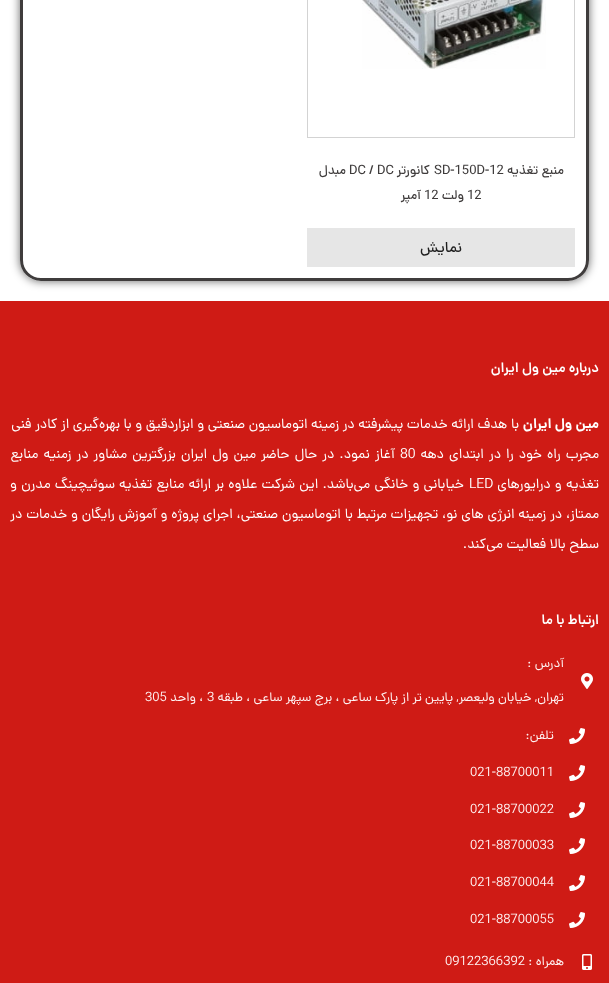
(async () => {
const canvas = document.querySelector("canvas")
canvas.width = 609
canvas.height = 983
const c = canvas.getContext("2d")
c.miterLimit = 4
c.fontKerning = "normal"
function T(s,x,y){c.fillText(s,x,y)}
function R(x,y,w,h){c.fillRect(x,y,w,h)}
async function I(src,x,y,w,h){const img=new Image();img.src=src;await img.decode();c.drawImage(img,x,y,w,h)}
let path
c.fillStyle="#fff"
R(0,0,609,983)
c.save()
path = new Path2D("M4 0h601v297h-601zm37-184h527c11.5 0 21 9.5 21 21v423c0 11.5-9.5 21-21 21h-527c-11.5 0-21-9.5-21-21v-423c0-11.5 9.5-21 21-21z")
c.clip(path,"evenodd")
c.fillStyle="#00000099"
c.filter="blur(5px)"
c.beginPath()
c.roundRect(20,-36,569,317,21)
c.fill()
c.filter="none"
c.restore()
c.beginPath()
c.roundRect(21.5,-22.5,566,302,19.5)
c.strokeStyle="#3f3c3c"
c.lineWidth=3
c.stroke()
c.strokeStyle="#d3d3d3"
c.lineWidth=1
c.strokeRect(307.5,-.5,267,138)
await I("1.png",362,0,184,69)
c.direction="rtl"
c.font="500 13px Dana"
c.fillStyle="#3f3c3c"
T("منبع تغذیه",564,174)
c.direction="ltr"
T("SD-150D-12",434,174)
c.direction="rtl"
T("کانورتر",430,174)
c.direction="ltr"
T("DC / DC",349,174)
c.direction="rtl"
T("مبدل",346,174)
c.direction="ltr"
T("12",467,199)
c.direction="rtl"
T("ولت",464,199)
c.direction="ltr"
T("12",424,199)
c.direction="rtl"
T("آمپر",421,199)
c.fillStyle="#e6e6e6"
R(307,228,268,39)
c.font="500 15px Dana"
c.fillStyle="#1f1f1f"
T("نمایش",462,252)
c.fillStyle="#cf1b15"
R(0,301,609,682)
c.font="600 14px Dana"
c.fillStyle="#fff"
T("درباره مین ول ایران",599,372)
c.font="bold 14px Dana"
T("مین ول ایران",599,428)
c.font="14px Dana"
T("با هدف ارائه خدمات پیشرفته در زمینه اتوماسیون صنعتی و ابزاردقیق و با بهره‌گیری از کادر فنی",519,428)
c.wordSpacing="1.5px"
T("مجرب راه خود را در ابتدای دهه",599,458)
c.wordSpacing="0px"
c.direction="ltr"
T("80",400,458)
c.wordSpacing="1.5px"
c.direction="rtl"
T("آغاز نمود. در حال حاضر مین ول ایران بزرگترین مشاور در زمنیه منابع",395,458)
c.wordSpacing="0.6px"
T("تغذیه و درایورهای",599,488)
c.wordSpacing="0px"
c.direction="ltr"
T("LED",469,488)
c.wordSpacing="0.6px"
c.direction="rtl"
T("خیابانی و خانگی می‌باشد. این شرکت علاوه بر ارائه منابع تغذیه سوئیچینگ مدرن و",464,488)
c.wordSpacing="0.25px"
T("ممتاز، در زمینه انرژی های نو، تجهیزات مرتبط با اتوماسیون صنعتی، اجرای پروژه و آموزش رایگان و خدمات در",599,518)
c.wordSpacing="0px"
T("سطح بالا فعالیت می‌کند.",599,548)
c.font="600 14px Dana"
T("ارتباط با ما",599,624)
await I("2.png",581,673,12,16)
c.font="13px Dana"
c.fillStyle="#fff3f3"
T("آدرس :",564,667)
T("تهران, خیابان ولیعصر, پایین تر از پارک ساعی ، برج سپهر ساعی ، طبقه",564,701)
c.direction="ltr"
T("3",207,701)
c.direction="rtl"
T("، واحد",203,701)
c.direction="ltr"
T("305",145,701)
await I("3.png",569,728,16,16)
c.direction="rtl"
T("تلفن:",554,739)
await I("3.png",569,765,16,16)
c.direction="ltr"
T("021-88700011",470,776)
await I("3.png",569,802,16,16)
T("021-88700022",470,813)
await I("3.png",569,838,16,16)
T("021-88700033",470,849)
await I("3.png",569,875,16,16)
T("021-88700044",470,886)
await I("3.png",569,912,16,16)
T("021-88700055",470,923)
await I("4.png",582,954,10,16)
c.direction="rtl"
T("همراه :",564,965)
c.direction="ltr"
T("09122366392",445,965)
})()
